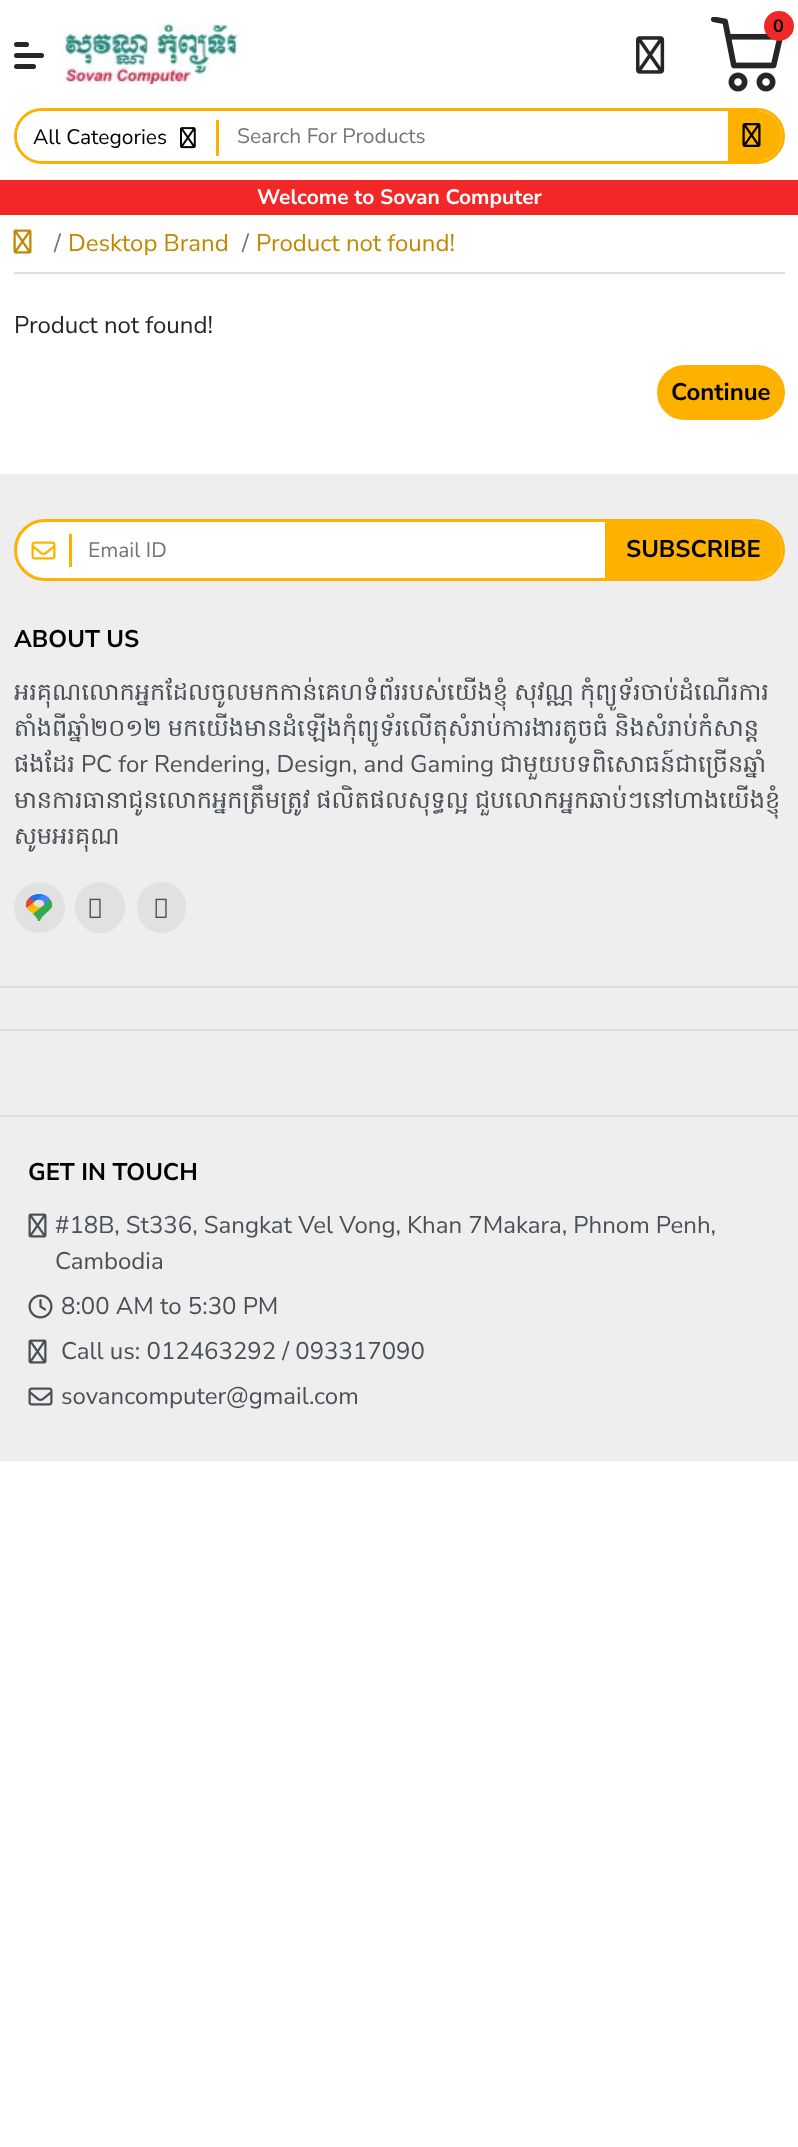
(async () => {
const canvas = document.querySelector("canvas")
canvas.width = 798
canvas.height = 2147
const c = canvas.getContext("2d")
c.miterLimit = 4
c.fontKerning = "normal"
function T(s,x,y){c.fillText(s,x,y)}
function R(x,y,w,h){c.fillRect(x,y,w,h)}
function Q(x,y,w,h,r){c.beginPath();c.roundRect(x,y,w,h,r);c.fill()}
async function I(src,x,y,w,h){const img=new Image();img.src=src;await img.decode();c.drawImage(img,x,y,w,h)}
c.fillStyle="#fff"
R(0,0,798,2147)
c.fillStyle="#262626"
Q(14,42,15,5,2.5)
Q(14,53,30,5,2.5)
Q(14,64,22,5,2.5)
await I("1.png",61,24,181,60)
await I("2.png",636,36,29,38)
await I("3.png",710,17,73,75)
c.fillStyle="#f22828"
c.beginPath()
c.arc(779,26,15,0,7)
c.fill()
c.font="bold 18px Nunito Sans"
c.fillStyle="#000"
T("0",773,32)
c.beginPath()
c.roundRect(15.5,109.5,768,53,26.5)
c.strokeStyle="#ffb100"
c.lineWidth=3
c.stroke()
c.fillStyle="#fff"
c.beginPath()
c.roundRect(17,111,711,50,[25,0,0,25])
c.fill()
c.fillStyle="#ffb100"
R(216,120,3,36)
c.font="21px Nunito Sans"
c.fillStyle="#000"
T("All Categories",33,144)
await I("4.png",180,127,16,22)
c.fillStyle="#757575"
T("Search For Products",237,143)
c.fillStyle="#ffb100"
c.beginPath()
c.roundRect(728,111,54,50,[0,25,25,0])
c.fill()
await I("5.png",742,123,19,24)
c.fillStyle="#f22828"
R(0,180,798,35)
c.font="bold 21px Nunito Sans"
c.fillStyle="#fff"
T("Welcome to Sovan Computer",257,204)
c.fillStyle="#ddd"
R(14,272,771,2)
await I("6.png",13,229,19,25)
c.font="24px Nunito Sans"
c.fillStyle="#6c757d"
T("/",54,251)
c.fillStyle="#c28700"
T("Desktop Brand",68,251)
c.fillStyle="#6c757d"
T("/",242,251)
c.fillStyle="#c28700"
T("Product not found!",256,251)
c.fillStyle="#262626"
T("Product not found!",14,333)
c.fillStyle="#ffb100"
c.beginPath()
c.roundRect(658.5,366.5,125,52,26)
c.fill()
c.stroke()
c.font="bold 24px Nunito Sans"
c.fillStyle="#000"
T("Continue",671,400)
c.fillStyle="#eee"
R(0,474,798,987)
c.fillStyle="#fff"
c.beginPath()
c.roundRect(15.5,520.5,768,59,29.5)
c.fill()
c.stroke()
c.fillStyle="#ffb100"
R(69,534,3,33)
await I("7.png",31,541,25,19)
c.font="21px Nunito Sans"
c.fillStyle="#757575"
T("Email ID",88,557)
c.fillStyle="#ffb100"
c.beginPath()
c.roundRect(606.5,523.5,174,53,[0,26.5,26.5,0])
c.fill()
c.stroke()
c.font="bold 24px Nunito Sans"
c.fillStyle="#000"
T("SUBSCRIBE",626,557)
c.fillStyle="#ddd"
R(0,986,798,2)
c.fillStyle="#000"
T("ABOUT US",14,647)
c.wordSpacing="-2px"
c.font="24px Hanuman"
c.fillStyle="#495057"
T("អរគុណលោកអ្នកដែលចូលមកកាន់គេហទំព័ររបស់យើងខ្ញុំ សុវណ្ណ កុំព្យូទ័រចាប់ដំណើរការ",14,700)
T("តាំងពីឆ្នាំ២០១២ មកយើងមានដំឡើងកុំព្យូទ័រលើតុសំរាប់ការងារតូចធំ និងសំរាប់កំសាន្ត",14,736)
c.wordSpacing="0px"
T("ផងដែរ",14,772)
c.font="24px Nunito Sans"
T("PC for Rendering, Design, and Gaming",81,772)
c.font="24px Hanuman"
T("ជាមួយបទពិសោធន៍ជាច្រើនឆ្នាំ",500,772)
c.wordSpacing="-2px"
T("មានការធានាជូនលោកអ្នកត្រឹមត្រូវ ផលិតផលសុទ្ធល្អ ជួបលោកអ្នកឆាប់ៗនៅហាងយើងខ្ញុំ",14,808)
c.wordSpacing="0px"
T("សូមអរគុណ",14,844)
c.fillStyle="#e1e1e1"
c.beginPath()
c.arc(39.5,907.5,25.5,0,7)
c.fill()
await I("8.png",25,894,28,27)
Q(75,882,50,51,25)
await I("9.png",89,898,12,20)
Q(137,882,49,51,24.5)
await I("9.png",155,898,12,20)
c.fillStyle="#ddd"
R(0,1029,798,2)
R(0,1115,798,2)
c.font="bold 24px Nunito Sans"
c.fillStyle="#000"
T("GET IN TOUCH",28,1180)
await I("10.png",28,1213,19,25)
c.font="24px Nunito Sans"
c.fillStyle="#495057"
T("#18B, St336, Sangkat Vel Vong, Khan 7Makara, Phnom Penh,",55,1233)
T("Cambodia",55,1269)
await I("11.png",28,1294,25,25)
T("8:00 AM to 5:30 PM",61,1314)
await I("10.png",28,1339,19,25)
T("Call us: 012463292 / 093317090",61,1359)
await I("12.png",28,1387,25,19)
T("sovancomputer@gmail.com",61,1404)
})()
